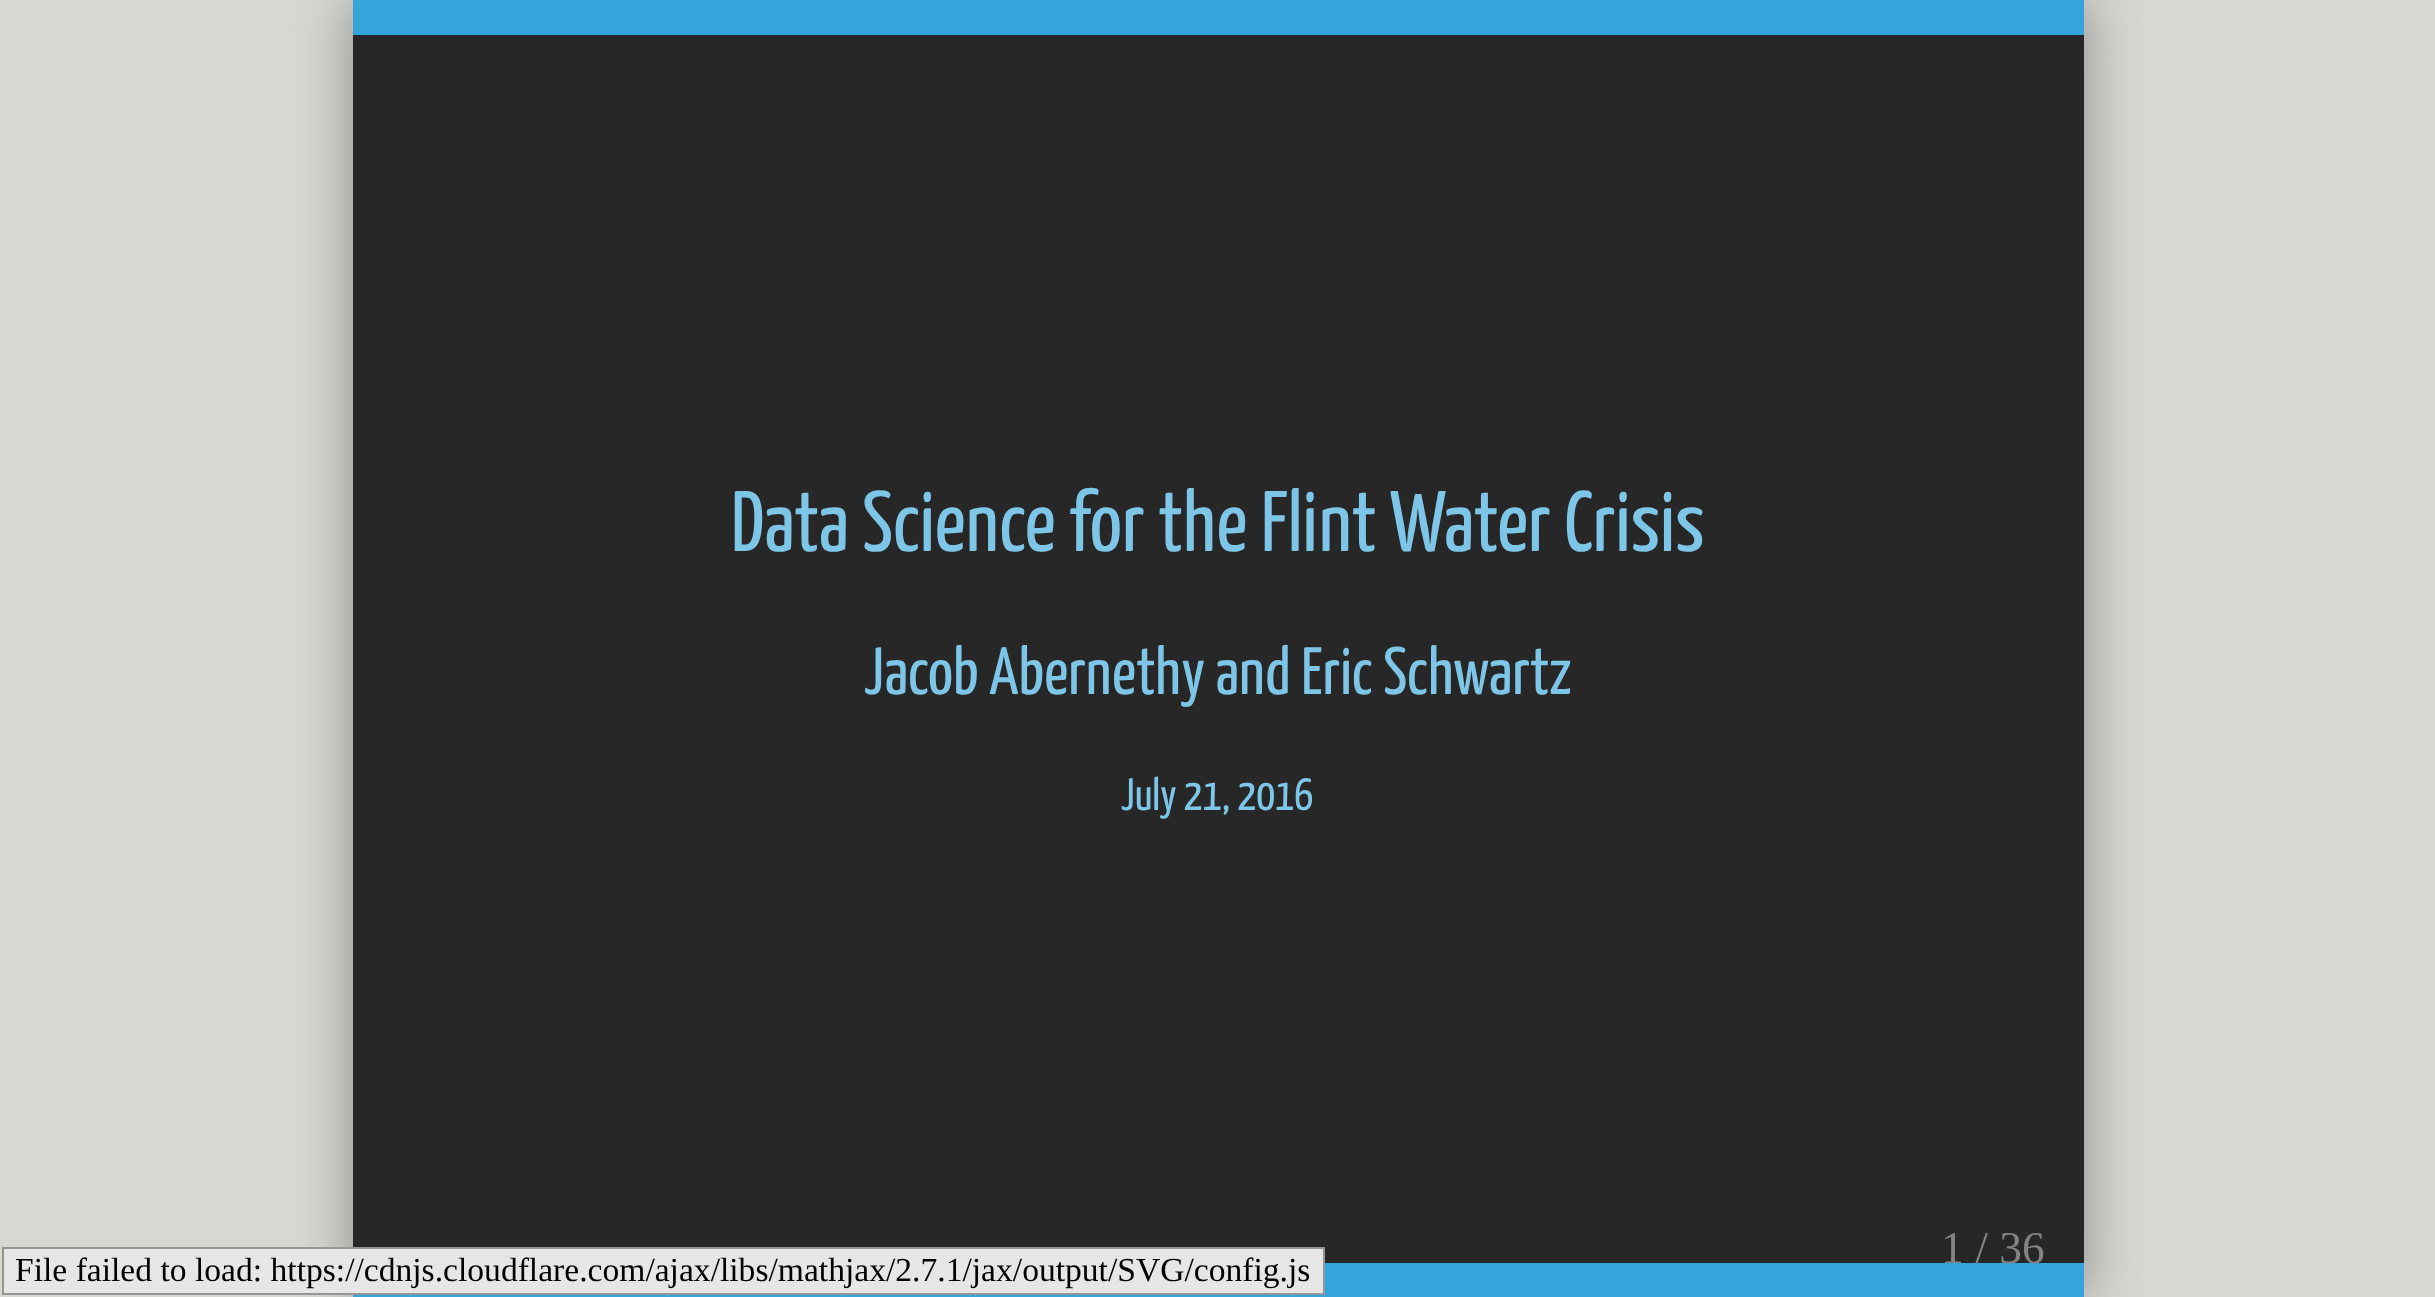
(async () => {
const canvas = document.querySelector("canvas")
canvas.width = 2435
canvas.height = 1297
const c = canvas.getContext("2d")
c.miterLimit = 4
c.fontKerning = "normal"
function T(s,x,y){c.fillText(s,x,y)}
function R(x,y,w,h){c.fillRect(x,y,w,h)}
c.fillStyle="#d7d8d2"
R(0,0,2435,1297)
c.fillStyle="#888"
c.filter="blur(28.5px)"
c.beginPath()
c.rect(353,0,1731,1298)
c.fill()
c.filter="none"
c.fillStyle="#272727"
R(353,35,1731,1228)
c.fillStyle="#34a5da"
R(353,0,1731,35)
R(353,1263,1731,34)
c.font="85.75px Yanone Kaffeesatz"
c.fillStyle="#7ec6e7"
T("Data Science for the Flint Water Crisis",731,551)
c.font="66.75px Yanone Kaffeesatz"
T("Jacob Abernethy and Eric Schwartz",864,694)
c.font="45.5px Yanone Kaffeesatz"
T("July 21, 2016",1121,810)
c.font="45.5px Liberation Serif"
c.fillStyle="#828384"
T("1 / 36",1941,1263)
c.fillStyle="#e6e6e6"
c.beginPath()
c.rect(3,1248,1321,46)
c.fill()
c.strokeStyle="#959595"
c.lineWidth=2
c.stroke()
c.font="33.6px Liberation Serif"
c.fillStyle="#000"
T("File failed to load: https://cdnjs.cloudflare.com/ajax/libs/mathjax/2.7.1/jax/output/SVG/config.js",15,1281)
})()
